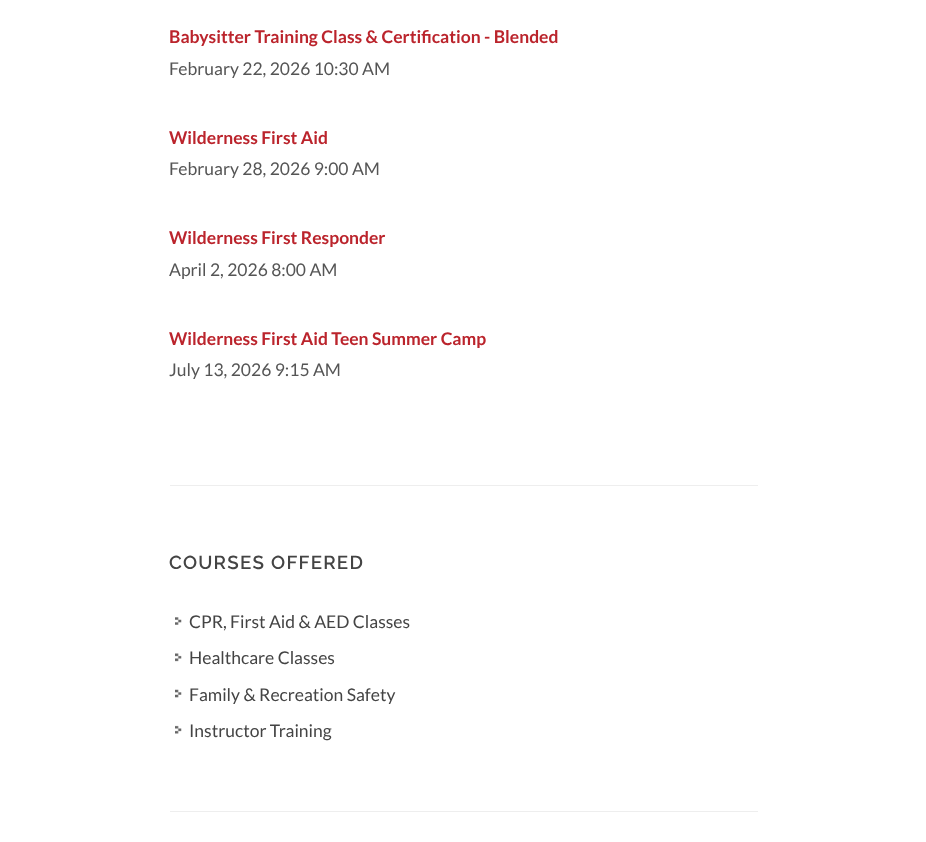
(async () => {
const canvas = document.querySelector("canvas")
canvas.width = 926
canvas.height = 842
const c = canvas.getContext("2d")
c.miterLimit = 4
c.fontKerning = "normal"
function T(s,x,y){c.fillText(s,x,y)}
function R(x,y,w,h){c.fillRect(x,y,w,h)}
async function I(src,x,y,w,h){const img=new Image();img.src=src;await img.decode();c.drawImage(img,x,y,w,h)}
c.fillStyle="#fff"
R(0,0,926,842)
c.font="bold 17.5px Lato"
c.fillStyle="#bb242c"
T("Babysitter Training Class & Certification - Blended",169,43)
c.font="17.5px Lato"
c.fillStyle="#555"
T("February 22, 2026 10:30 AM",169,75)
c.font="bold 17.5px Lato"
c.fillStyle="#bb242c"
T("Wilderness First Aid",169,144)
c.font="17.5px Lato"
c.fillStyle="#555"
T("February 28, 2026 9:00 AM",169,175)
c.font="bold 17.5px Lato"
c.fillStyle="#bb242c"
T("Wilderness First Responder",169,244)
c.font="17.5px Lato"
c.fillStyle="#555"
T("April 2, 2026 8:00 AM",169,276)
c.font="bold 17.5px Lato"
c.fillStyle="#bb242c"
T("Wilderness First Aid Teen Summer Camp",169,345)
c.font="17.5px Lato"
c.fillStyle="#555"
T("July 13, 2026 9:15 AM",169,376)
c.fillStyle="#eee"
R(170,485,588,1)
c.letterSpacing="1.25px"
c.font="600 18.75px Raleway"
c.fillStyle="#444"
T("COURSES OFFERED",169,569)
await I("1.png",175,617,7,8)
c.letterSpacing="0px"
c.font="17.5px Lato"
T("CPR, First Aid & AED Classes",189,628)
await I("2.png",175,653,7,9)
T("Healthcare Classes",189,664)
await I("3.png",175,689,7,9)
T("Family & Recreation Safety",189,701)
await I("4.png",175,725,7,9)
T("Instructor Training",189,737)
c.fillStyle="#eee"
R(170,811,588,1)
})()
